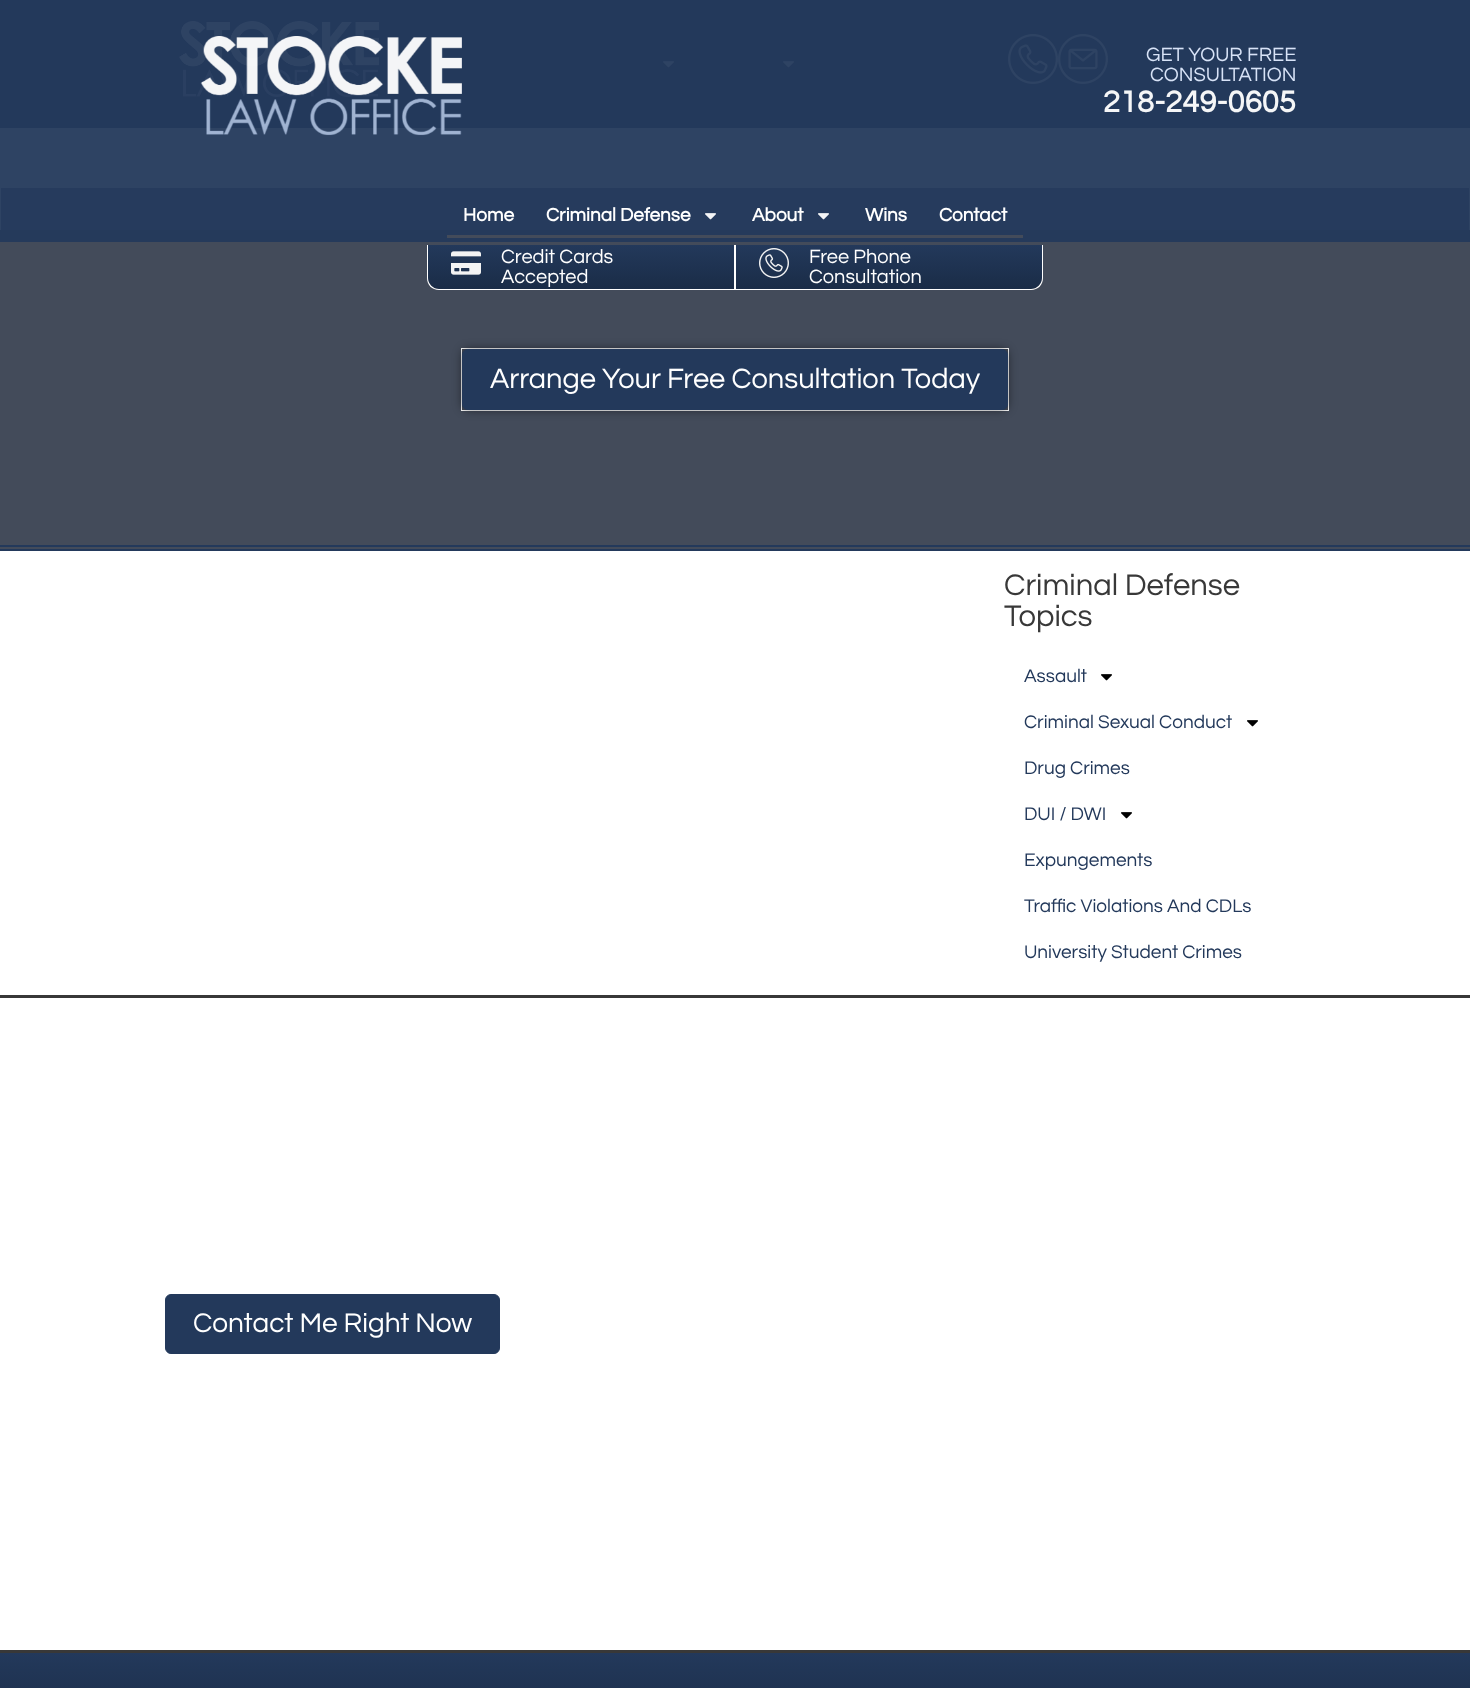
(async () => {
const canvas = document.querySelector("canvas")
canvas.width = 1470
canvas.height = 1688
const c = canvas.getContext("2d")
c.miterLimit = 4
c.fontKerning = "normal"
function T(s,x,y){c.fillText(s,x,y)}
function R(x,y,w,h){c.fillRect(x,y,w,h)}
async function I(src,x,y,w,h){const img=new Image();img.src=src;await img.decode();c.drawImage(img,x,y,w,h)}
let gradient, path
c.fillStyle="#fff"
R(0,0,1470,1688)
c.fillStyle="#2e4363"
R(0,128,1470,102)
c.fillStyle="#263b5d"
R(1,188,1468,42)
c.fillStyle="#23395b"
R(0,0,1470,128)
await I("1.png",179,21,200,76)
await I("2.png",663,61,11,7)
await I("2.png",783,61,11,7)
await I("3.png",1008,34,50,50)
await I("4.png",1058,34,50,50)
await I("5.png",200,36,262,100)
c.font="20px Questrial"
c.fillStyle="#d8e3f7"
T("GET YOUR FREE",1146,61)
T("CONSULTATION",1150,81)
c.font="bold 31px Questrial"
c.fillStyle="#f5f6f7"
T("218-249-0605",1103,112)
c.font="bold 19px Questrial"
c.fillStyle="#fff"
T("Home",463,221)
c.fillStyle="#253a5b"
R(0,230,1470,12)
c.fillStyle="#434b5a"
R(447,235,576,3)
c.fillStyle="#fff"
T("Criminal Defense",546,221)
await I("6.png",705,213,11,7)
T("About",752,221)
await I("6.png",818,213,11,7)
T("Wins",865,221)
T("Contact",939,221)
c.fillStyle="#434b5a"
R(0,242,1470,307)
gradient = c.createLinearGradient(581,245,581,289)
gradient.addColorStop(0,"#23395b")
gradient.addColorStop(1,"#1a2c47")
c.fillStyle = gradient
c.beginPath()
c.roundRect(428,245,306,44,[0,0,0,11])
c.fill()
c.fillStyle="#fff"
path = new Path2D("M427 245h308v45h-296c-7 0-12-5-12-12zm1 0h306v44h-295c-6 0-11-5-11-11z")
c.fill(path,"evenodd")
await I("7.png",451,251,30,24)
c.font="20px Questrial"
T("Credit Cards",501,263)
T("Accepted",501,283)
gradient = c.createLinearGradient(889,245,889,289)
gradient.addColorStop(0,"#23395b")
gradient.addColorStop(1,"#1a2c47")
c.fillStyle = gradient
c.beginPath()
c.roundRect(736,245,306,44,[0,0,11,0])
c.fill()
c.fillStyle="#fff"
path = new Path2D("M735 245h308v33c0 7-5 12-12 12h-296zm1 0h306v33c0 6-5 11-11 11h-295z")
c.fill(path,"evenodd")
await I("8.png",759,248,30,30)
T("Free Phone",809,263)
T("Consultation",809,283)
c.fillStyle="#23395b"
R(0,545,1470,2)
R(0,549,1470,2)
c.strokeStyle="#fff"
c.strokeRect(461.5,348.5,547,62)
c.fillStyle="#00000080"
c.filter="blur(5px)"
c.beginPath()
c.roundRect(462,349,546,61,6)
c.fill()
c.filter="none"
c.fillStyle="#23395b"
c.beginPath()
c.roundRect(462.5,349.5,545,60,5.5)
c.fill()
c.strokeStyle="#23395b"
c.stroke()
c.font="29px Questrial"
c.fillStyle="#fff"
T("Arrange Your Free Consultation Today",490,388)
c.font="31px Questrial"
c.fillStyle="#383838"
T("Criminal Defense",1004,595)
T("Topics",1004,626)
c.font="19px Questrial"
c.fillStyle="#23395b"
T("Assault",1024,682)
await I("9.png",1101,674,11,7)
T("Criminal Sexual Conduct",1024,728)
await I("9.png",1247,720,11,7)
T("Drug Crimes",1024,774)
T("DUI / DWI",1024,820)
await I("9.png",1121,812,11,7)
T("Expungements",1024,866)
T("Traffic Violations And CDLs",1024,912)
T("University Student Crimes",1024,958)
c.fillStyle="#383838"
R(0,995,1470,3)
R(0,1650,1470,3)
c.fillStyle="#23395b"
c.beginPath()
c.roundRect(165.5,1294.5,334,59,5.5)
c.fill()
c.stroke()
c.font="28px Questrial"
c.fillStyle="#fff"
T("Contact Me Right Now",193,1332)
gradient = c.createLinearGradient(735,1653,735,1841)
gradient.addColorStop(0,"#23395b")
gradient.addColorStop(1,"#0e192a")
c.fillStyle = gradient
R(0,1653,1470,35)
})()
